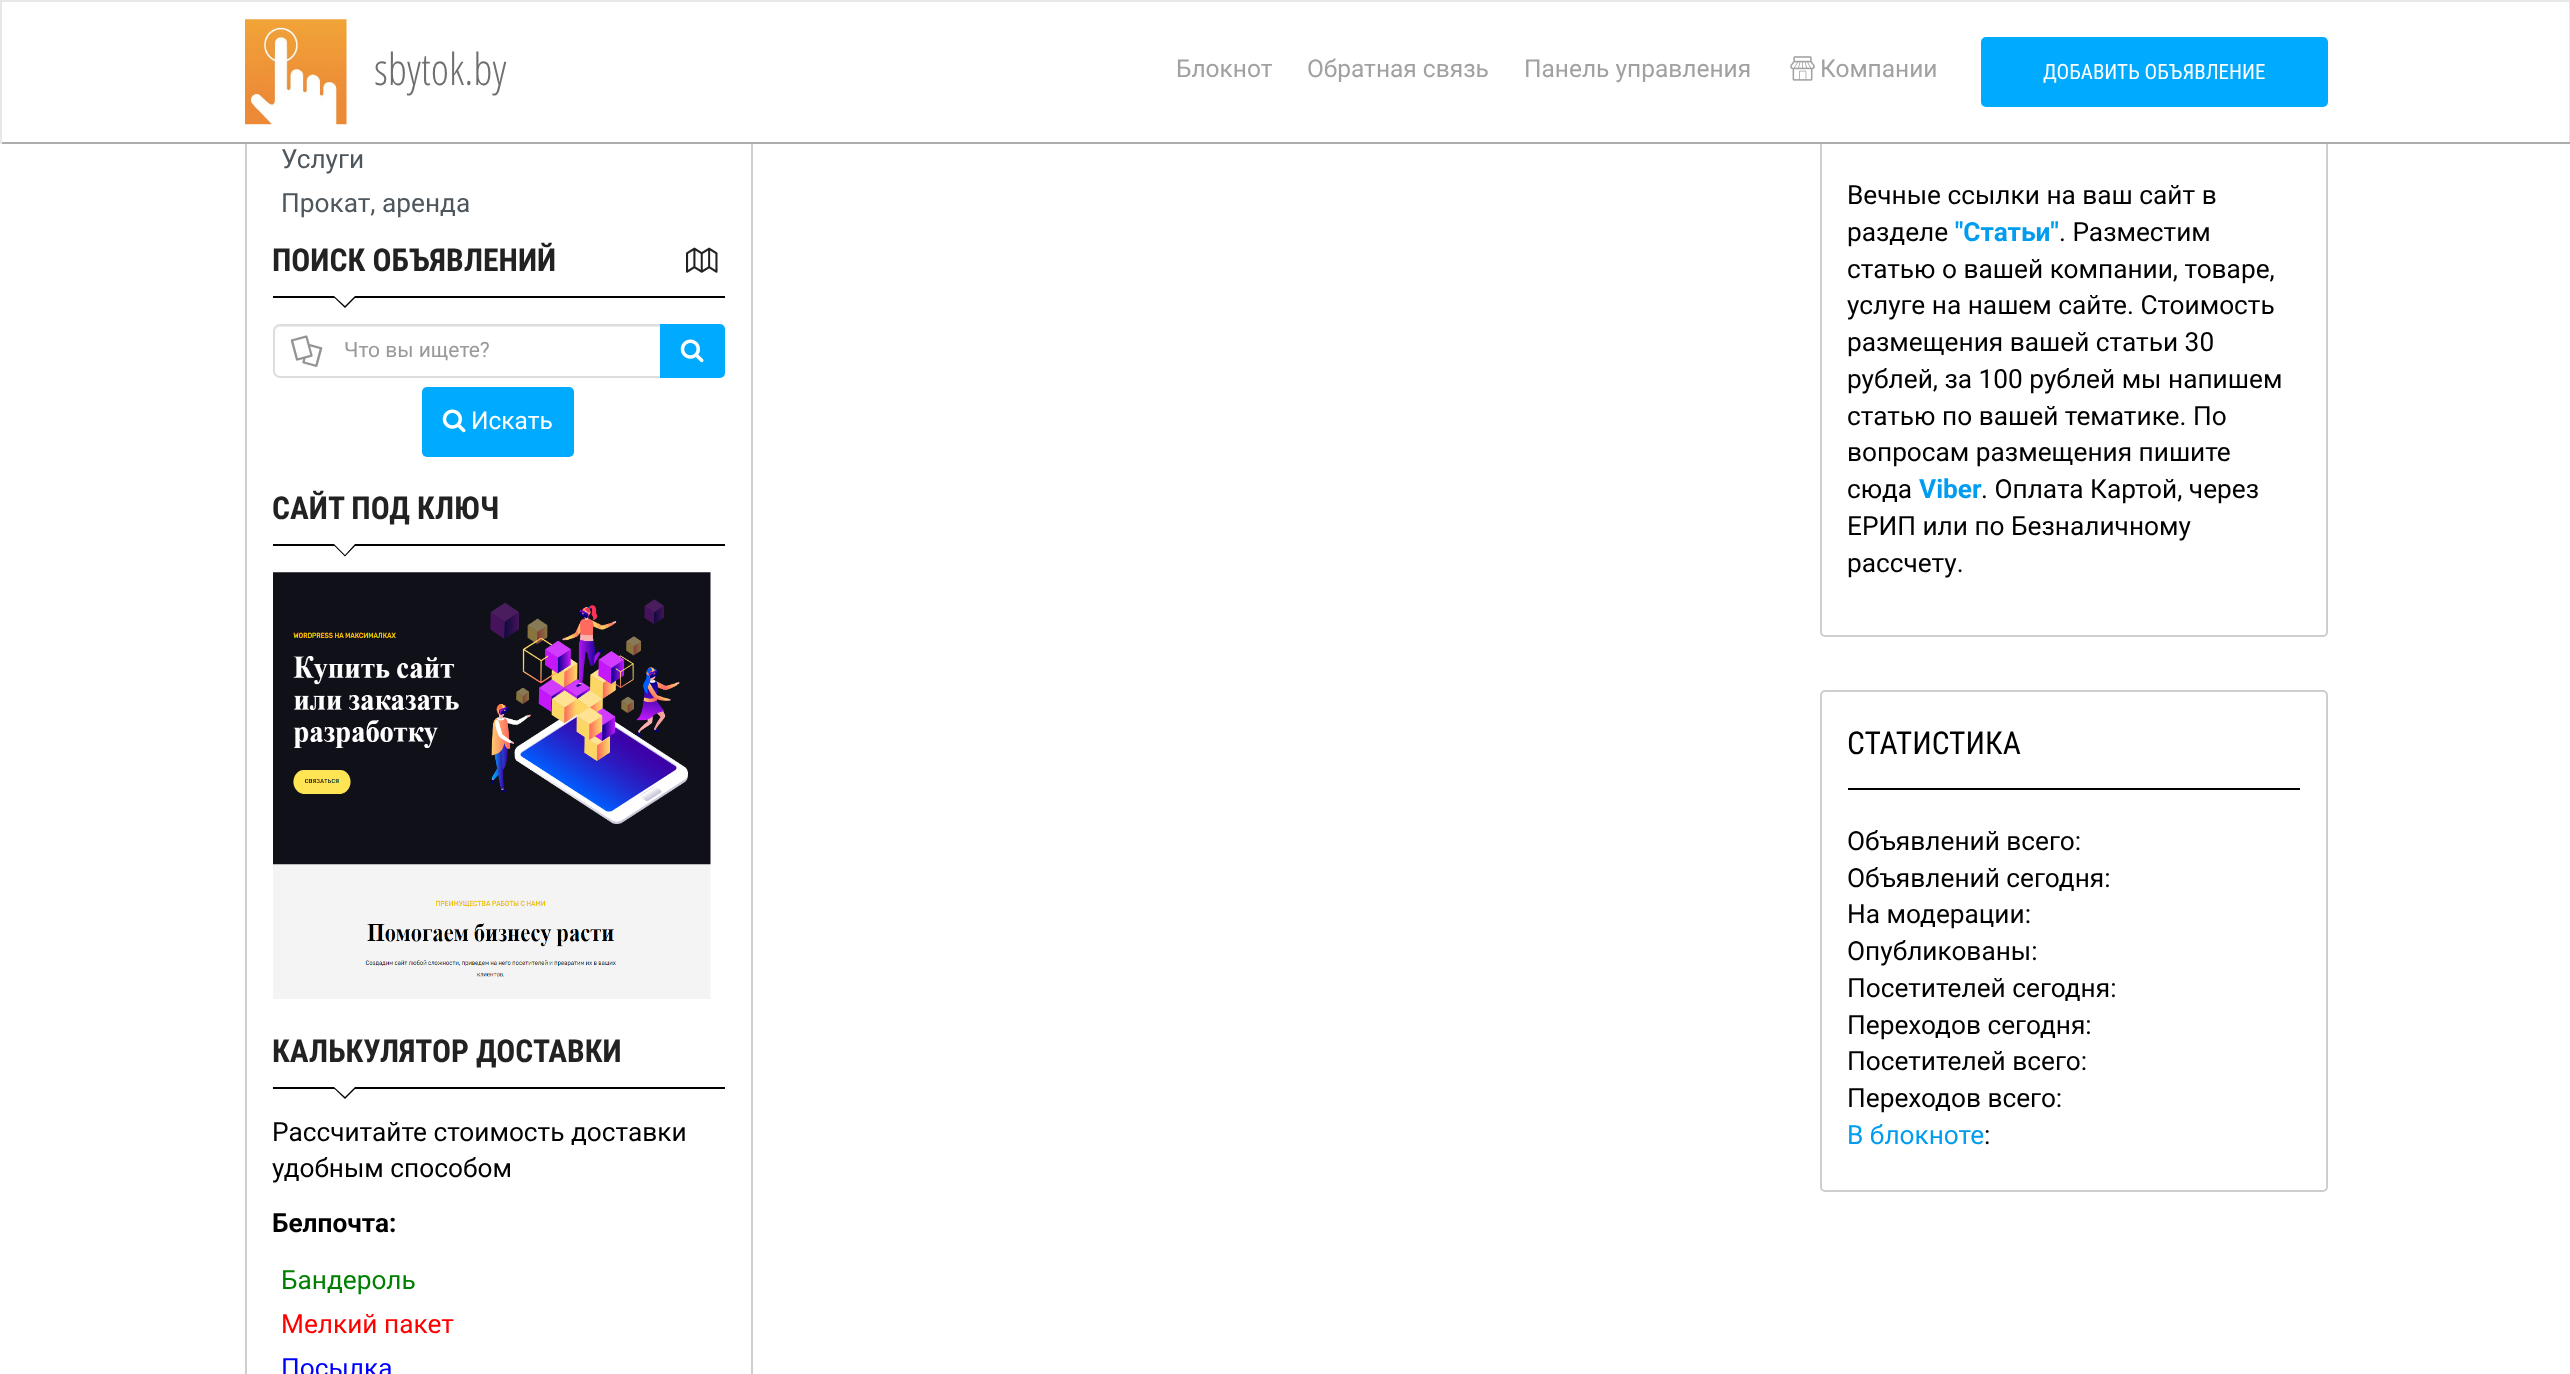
(async () => {
const canvas = document.querySelector("canvas")
canvas.width = 2570
canvas.height = 1374
const c = canvas.getContext("2d")
c.miterLimit = 4
c.fontKerning = "normal"
function T(s,x,y){c.fillText(s,x,y)}
function R(x,y,w,h){c.fillRect(x,y,w,h)}
function Q(x,y,w,h,r){c.beginPath();c.roundRect(x,y,w,h,r);c.fill()}
async function I(src,x,y,w,h){const img=new Image();img.src=src;await img.decode();c.drawImage(img,x,y,w,h)}
let path
c.fillStyle="#fff"
R(0,0,2570,1374)
c.strokeStyle="#cecece"
c.lineWidth=2
c.strokeRect(246,-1,506,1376)
c.beginPath()
c.roundRect(1821,45,506,591,4)
c.stroke()
R(245,2,2083,140)
c.fillStyle="#e7e7e7"
R(0,0,2570,2)
R(2569,0,1,144)
c.fillStyle="#adadad"
R(0,142,2570,2)
c.fillStyle="#e7e7e7"
R(0,0,2,144)
await I("1.png",245,19,102,106)
c.font="300 44px Open Sans Condensed"
c.fillStyle="#6f6f6f"
T("sbytok.by",374,85)
c.font="24.5px Roboto"
c.fillStyle="#a1a1a1"
T("Блокнот",1176,77)
T("Обратная связь",1307,77)
T("Панель управления",1524,77)
await I("2.png",1790,56,25,25)
T("Компании",1820,77)
c.fillStyle="#0af"
Q(1981,37,347,70,5)
c.font="21px Roboto Condensed"
c.fillStyle="#fff"
T("ДОБАВИТЬ ОБЪЯВЛЕНИЕ",2043,79)
c.font="26.25px Roboto"
c.fillStyle="#4e575d"
T("Услуги",281,168)
T("Прокат, аренда",281,212)
c.fillStyle="#000"
R(273,296,452,2)
c.font="bold 31.5px Roboto Condensed"
c.fillStyle="#222"
T("ПОИСК ОБЪЯВЛЕНИЙ",272,271)
await I("3.png",686,247,32,26)
c.fillStyle="#000"
path = new Path2D("M332.5 296h24.5l-12 12z")
c.fill(path)
c.fillStyle="#fff"
path = new Path2D("M334 296h21l-10 10z")
c.fill(path)
c.fillStyle="#ececec"
path = new Path2D("M280 327h380v-1h-380c-3 0-5 3-5 6c0-2 2-5 5-5z")
c.fill(path)
c.beginPath()
c.roundRect(274,325,387,52,[6,0,0,6])
c.strokeStyle="#ddd"
c.stroke()
await I("4.png",290,335,33,32)
c.font="21px Roboto"
c.fillStyle="#999"
T("Что вы ищете?",344,357)
c.fillStyle="#0af"
c.beginPath()
c.roundRect(660,324,65,54,[0,5,5,0])
c.fill()
await I("5.png",680,339,24,24)
Q(422,387,152,70,5)
await I("5.png",442,409,24,24)
c.font="24.5px Roboto"
c.fillStyle="#fff"
T("Искать",471,429)
c.fillStyle="#000"
R(273,544,452,2)
c.font="bold 31.5px Roboto Condensed"
c.fillStyle="#222"
T("САЙТ ПОД КЛЮЧ",272,519)
c.fillStyle="#000"
path = new Path2D("M332.5 544h24.5l-12 12.5z")
c.fill(path)
c.fillStyle="#fff"
path = new Path2D("M334 544h21l-10 11z")
c.fill(path)
await I("6.png",273,572,438,427)
c.fillStyle="#000"
R(273,1087,452,2)
c.fillStyle="#222"
T("КАЛЬКУЛЯТОР ДОСТАВКИ",272,1062)
c.fillStyle="#000"
path = new Path2D("M332.5 1087h24.5l-12 12z")
c.fill(path)
c.fillStyle="#fff"
path = new Path2D("M334 1087h21l-10 10z")
c.fill(path)
c.font="26.25px Roboto"
c.fillStyle="#000"
T("Рассчитайте стоимость доставки",272,1141)
T("удобным способом",272,1177)
c.font="bold 26.25px Roboto"
T("Белпочта:",272,1232)
c.font="26.25px Roboto"
c.fillStyle="#008000"
T("Бандероль",281,1289)
c.fillStyle="#f00"
T("Мелкий пакет",281,1333)
c.fillStyle="#00f"
T("Посылка",281,1377)
c.fillStyle="#000"
T("Вечные ссылки на ваш сайт в",1847,204)
T("разделе",1847,241)
c.font="bold 26.25px Roboto"
c.fillStyle="#009cf0"
T("\"Статьи\"",1955,241)
c.font="26.25px Roboto"
c.fillStyle="#000"
T(". Разместим",2059,241)
T("статью о вашей компании, товаре,",1847,278)
T("услуге на нашем сайте. Стоимость",1847,314)
T("размещения вашей статьи 30",1847,351)
T("рублей, за 100 рублей мы напишем",1847,388)
T("статью по вашей тематике. По",1847,425)
T("вопросам размещения пишите",1847,461)
T("сюда",1847,498)
c.font="bold 26.25px Roboto"
c.fillStyle="#009cf0"
T("Viber",1919,498)
c.font="26.25px Roboto"
c.fillStyle="#000"
T(". Оплата Картой, через",1981,498)
T("ЕРИП или по Безналичному",1847,535)
T("рассчету.",1847,572)
c.beginPath()
c.roundRect(1821,691,506,500,4)
c.strokeStyle="#cecece"
c.stroke()
R(1848,788,452,2)
c.font="31.5px Roboto Condensed"
T("СТАТИСТИКА",1847,754)
c.font="26.25px Roboto"
T("Объявлений всего:",1847,850)
T("Объявлений сегодня:",1847,887)
T("На модерации:",1847,923)
T("Опубликованы:",1847,960)
T("Посетителей сегодня:",1847,997)
T("Переходов сегодня:",1847,1034)
T("Посетителей всего:",1847,1070)
T("Переходов всего:",1847,1107)
c.fillStyle="#009cf0"
T("В блокноте",1847,1144)
c.fillStyle="#000"
T(":",1984,1144)
})()
